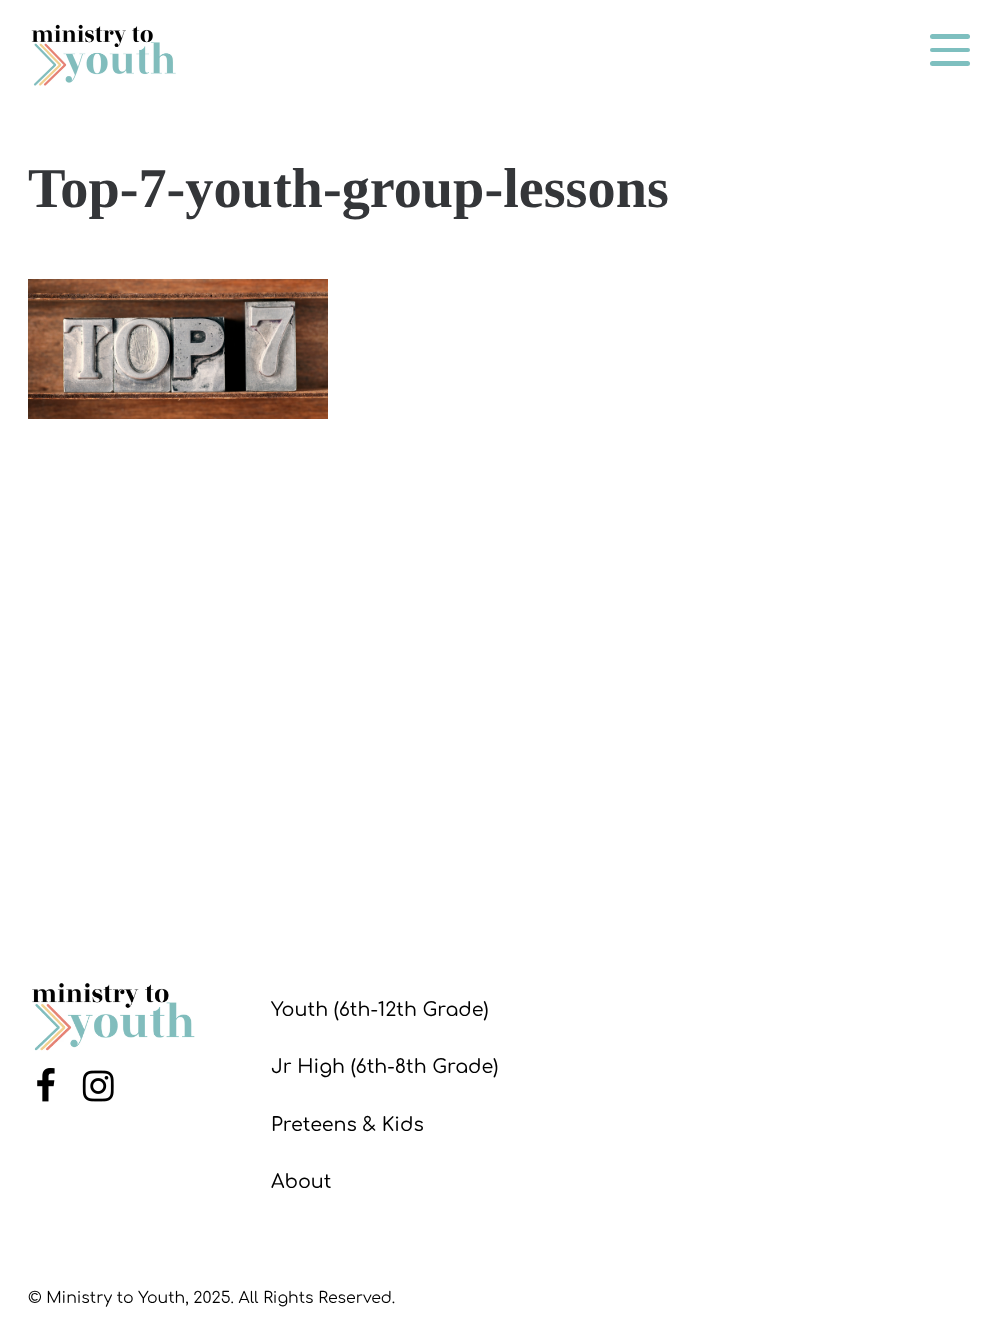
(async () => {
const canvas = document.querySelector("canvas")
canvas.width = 992
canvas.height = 1330
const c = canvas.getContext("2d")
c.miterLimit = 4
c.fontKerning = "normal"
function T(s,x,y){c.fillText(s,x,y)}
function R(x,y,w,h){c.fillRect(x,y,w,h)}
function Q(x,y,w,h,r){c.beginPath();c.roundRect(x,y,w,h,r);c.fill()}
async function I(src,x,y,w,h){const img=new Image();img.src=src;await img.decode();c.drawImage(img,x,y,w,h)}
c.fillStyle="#fff"
R(0,0,992,1330)
await I("1.png",31,24,145,62)
c.fillStyle="#7ebfbf"
Q(930,48,40,4,2)
Q(930,34,40,5,2.5)
Q(930,61,40,5,2.5)
c.font="bold 56.25px Liberation Serif"
c.fillStyle="#343639"
T("Top-7-youth-group-lessons",28,207)
await I("2.png",28,279,300,140)
await I("3.png",32,983,163,68)
await I("4.png",37,1068,18,34)
await I("5.png",82,1070,32,32)
c.font="500 19.1px Comfortaa"
c.fillStyle="#000"
T("Youth (6th-12th Grade)",271,1016)
T("Jr High (6th-8th Grade)",271,1073)
T("Preteens & Kids",271,1131)
T("About",271,1188)
c.font="15.75px Comfortaa"
T("© Ministry to Youth, 2025. All Rights Reserved.",28,1303)
})()
